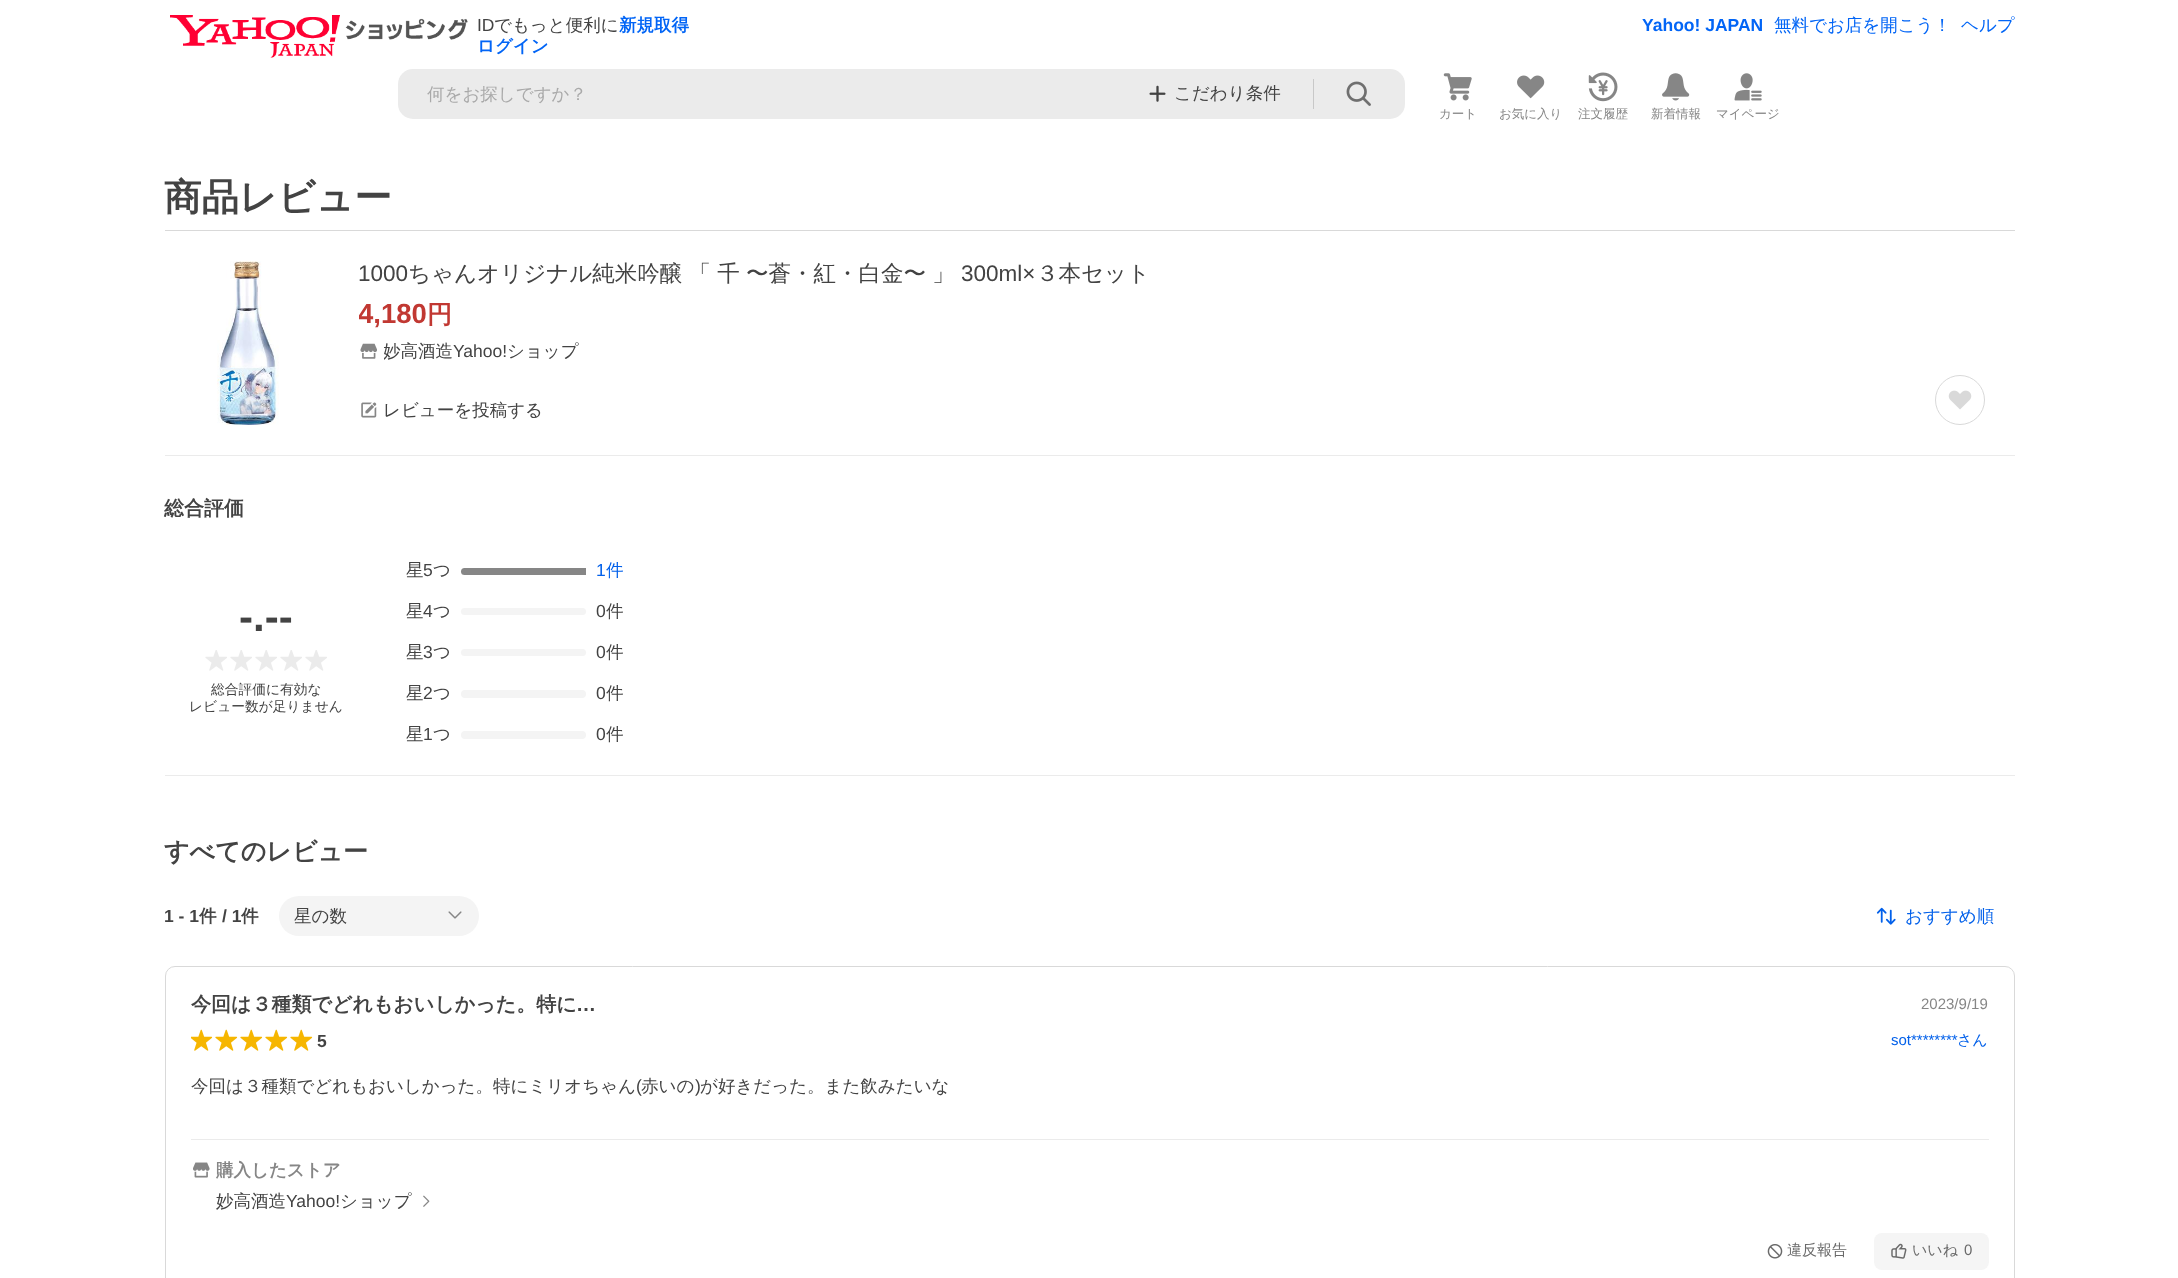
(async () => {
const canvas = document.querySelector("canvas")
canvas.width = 2178
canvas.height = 1278
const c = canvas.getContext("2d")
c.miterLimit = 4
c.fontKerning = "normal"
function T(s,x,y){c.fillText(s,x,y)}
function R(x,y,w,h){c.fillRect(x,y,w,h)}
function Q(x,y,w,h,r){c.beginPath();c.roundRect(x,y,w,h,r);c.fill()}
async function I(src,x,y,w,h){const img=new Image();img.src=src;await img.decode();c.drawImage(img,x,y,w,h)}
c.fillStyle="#fff"
R(0,0,2178,1278)
await I("1.png",170,15,298,43)
c.font="17.5px Liberation Sans"
c.fillStyle="#434343"
T("ID",477,31)
c.font="500 17.5px WenQuanYi Zen Hei"
T("でもっと便利に",494,31)
c.font="bold 17.5px WenQuanYi Zen Hei"
c.fillStyle="#0265f6"
T("新規取得",619,31)
T("ログイン",477,52)
c.font="bold 17.5px Liberation Sans"
T("Yahoo! JAPAN",1642,31)
c.font="500 17.5px WenQuanYi Zen Hei"
T("無料でお店を開こう！",1774,31)
T("ヘルプ",1961,31)
c.fillStyle="#ebebeb"
Q(398,69,1007,50,15)
c.fillStyle="#a9a9a9"
T("何をお探しですか？",427,100)
await I("2.png",1149,85,17,17)
c.fillStyle="#434343"
T("こだわり条件",1174,99)
c.fillStyle="#c8c8c8"
R(1313,79,1,30)
await I("3.png",1346,81,25,25)
await I("4.png",1443,73,29,28)
c.font="500 12.5px WenQuanYi Zen Hei"
c.fillStyle="#868686"
T("カート",1439,118)
await I("5.png",1517,75,28,24)
T("お気に入り",1499,118)
await I("6.png",1588,72,30,30)
T("注文履歴",1578,118)
await I("7.png",1662,73,28,28)
T("新着情報",1651,118)
await I("8.png",1734,73,28,28)
T("マイページ",1716,118)
c.fillStyle="#d9d9d9"
R(165,230,1850,1)
c.font="bold 37.5px WenQuanYi Zen Hei"
c.fillStyle="#434343"
T("商品レビュー",164,210)
await I("9.png",217,261,62,164)
c.font="22.5px Liberation Sans"
T("1000",358,281)
c.wordSpacing="-0.5px"
c.font="500 22.5px WenQuanYi Zen Hei"
T("ちゃんオリジナル純米吟醸 「 千 〜蒼・紅・白金〜 」",408,281)
c.wordSpacing="0px"
c.font="22.5px Liberation Sans"
T("300ml×",961,281)
c.font="500 22.5px WenQuanYi Zen Hei"
T("３本セット",1036,281)
c.save()
c.beginPath()
c.rect(359,261,1656,164)
c.clip()
c.font="bold 27.5px Liberation Sans"
c.fillStyle="#c13832"
T("4,180",358,323)
c.restore()
c.font="bold 25px WenQuanYi Zen Hei"
c.fillStyle="#c13832"
T("円",427,323)
await I("10.png",360,343,17,16)
c.save()
c.beginPath()
c.rect(384,341,195,22)
c.clip()
c.font="500 17.5px WenQuanYi Zen Hei"
c.fillStyle="#434343"
T("妙高酒造",383,357)
c.restore()
c.font="17.5px Liberation Sans"
c.fillStyle="#434343"
T("Yahoo!",453,357)
c.font="500 17.5px WenQuanYi Zen Hei"
T("ショップ",507,357)
await I("11.png",361,402,16,16)
T("レビューを投稿する",383,416)
c.beginPath()
c.arc(1960,400,24.5,0,7)
c.strokeStyle="#d9d9d9"
c.stroke()
await I("12.png",1948,390,24,20)
c.fillStyle="#ebebeb"
R(165,455,1850,1)
c.font="bold 20px WenQuanYi Zen Hei"
c.fillStyle="#434343"
T("総合評価",164,515)
c.font="bold 42px Liberation Sans"
T("-.--",239,631)
await I("13.png",205,650,22,21)
await I("13.png",230,650,22,21)
await I("13.png",255,650,22,21)
await I("13.png",280,650,22,21)
await I("13.png",305,650,22,21)
c.font="500 13.75px WenQuanYi Zen Hei"
T("総合評価に有効な",211,694)
T("レビュー数が足りません",189,711)
c.font="500 17.5px WenQuanYi Zen Hei"
T("星",406,576)
c.font="17.5px Liberation Sans"
T("5",423,576)
c.font="500 17.5px WenQuanYi Zen Hei"
T("つ",433,576)
c.fillStyle="#868686"
c.beginPath()
c.roundRect(461,568,125,7,[3.5,0,0,3.5])
c.fill()
c.font="17.5px Liberation Sans"
c.fillStyle="#0260ea"
T("1",596,576)
c.font="500 17.5px WenQuanYi Zen Hei"
T("件",606,576)
c.fillStyle="#434343"
T("星",406,617)
c.font="17.5px Liberation Sans"
T("4",423,617)
c.font="500 17.5px WenQuanYi Zen Hei"
T("つ",433,617)
c.fillStyle="#f4f4f4"
Q(461,608,125,7,3.5)
c.font="17.5px Liberation Sans"
c.fillStyle="#434343"
T("0",596,617)
c.font="500 17.5px WenQuanYi Zen Hei"
T("件",606,617)
T("星",406,658)
c.font="17.5px Liberation Sans"
T("3",423,658)
c.font="500 17.5px WenQuanYi Zen Hei"
T("つ",433,658)
c.fillStyle="#f4f4f4"
Q(461,649,125,7,3.5)
c.font="17.5px Liberation Sans"
c.fillStyle="#434343"
T("0",596,658)
c.font="500 17.5px WenQuanYi Zen Hei"
T("件",606,658)
T("星",406,699)
c.font="17.5px Liberation Sans"
T("2",423,699)
c.font="500 17.5px WenQuanYi Zen Hei"
T("つ",433,699)
c.fillStyle="#f4f4f4"
Q(461,690,125,8,4)
c.font="17.5px Liberation Sans"
c.fillStyle="#434343"
T("0",596,699)
c.font="500 17.5px WenQuanYi Zen Hei"
T("件",606,699)
T("星",406,740)
c.font="17.5px Liberation Sans"
T("1",423,740)
c.font="500 17.5px WenQuanYi Zen Hei"
T("つ",433,740)
c.fillStyle="#f4f4f4"
Q(461,731,125,8,4)
c.font="17.5px Liberation Sans"
c.fillStyle="#434343"
T("0",596,740)
c.font="500 17.5px WenQuanYi Zen Hei"
T("件",606,740)
c.fillStyle="#ebebeb"
R(165,775,1850,1)
c.font="bold 25px WenQuanYi Zen Hei"
c.fillStyle="#434343"
T("すべてのレビュー",164,860)
c.font="bold 17.5px Liberation Sans"
T("1 - 1",164,922)
c.font="bold 17.5px WenQuanYi Zen Hei"
T("件",199,922)
c.font="bold 17.5px Liberation Sans"
T("/ 1",222,922)
c.font="bold 17.5px WenQuanYi Zen Hei"
T("件",241,922)
c.fillStyle="#f4f4f4"
Q(279,896,200,40,20)
c.font="500 17.5px WenQuanYi Zen Hei"
c.fillStyle="#434343"
T("星の数",294,922)
await I("14.png",448,911,14,8)
await I("15.png",1876,907,20,18)
c.fillStyle="#0260ea"
T("おすすめ順",1905,922)
c.beginPath()
c.roundRect(165.5,966.5,1849,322,9.5)
c.stroke()
c.font="bold 20px WenQuanYi Zen Hei"
c.fillStyle="#434343"
T("今回は３種類でどれもおいしかった。特に",191,1011)
c.font="bold 20px Liberation Sans"
T("…",576,1011)
c.font="15px Liberation Sans"
c.fillStyle="#868686"
T("2023/9/19",1921,1009)
await I("16.png",191,1029,22,22)
await I("17.png",215,1029,23,22)
await I("17.png",240,1029,23,22)
await I("17.png",265,1029,23,22)
await I("17.png",290,1029,23,22)
c.font="bold 17.5px Liberation Sans"
c.fillStyle="#434343"
T("5",317,1047)
c.font="15px Liberation Sans"
c.fillStyle="#0260ea"
T("sot********",1891,1045)
c.font="500 15px WenQuanYi Zen Hei"
T("さん",1957,1045)
c.font="500 17.5px WenQuanYi Zen Hei"
c.fillStyle="#434343"
T("今回は３種類でどれもおいしかった。特にミリオちゃん",191,1092)
c.font="17.5px Liberation Sans"
T("(",636,1092)
c.font="500 17.5px WenQuanYi Zen Hei"
T("赤いの",641,1092)
c.font="17.5px Liberation Sans"
T(")",695,1092)
c.font="500 17.5px WenQuanYi Zen Hei"
T("が好きだった。また飲みたいな",700,1092)
c.fillStyle="#ebebeb"
R(191,1139,1798,1)
await I("18.png",193,1162,17,16)
c.font="bold 17.5px WenQuanYi Zen Hei"
c.fillStyle="#868686"
T("購入したストア",216,1176)
c.font="500 17.5px WenQuanYi Zen Hei"
c.fillStyle="#434343"
T("妙高酒造",216,1207)
c.font="17.5px Liberation Sans"
T("Yahoo!",286,1207)
c.font="500 17.5px WenQuanYi Zen Hei"
T("ショップ",340,1207)
await I("19.png",423,1195,7,12)
await I("20.png",1767,1244,16,15)
c.font="500 15px WenQuanYi Zen Hei"
c.fillStyle="#6a6a6a"
T("違反報告",1787,1255)
c.fillStyle="#f5f5f5"
Q(1874,1233,115,37,8)
await I("21.png",1891,1243,16,16)
c.fillStyle="#6a6a6a"
T("いいね",1912,1255)
c.font="15px Liberation Sans"
T("0",1964,1255)
})()
